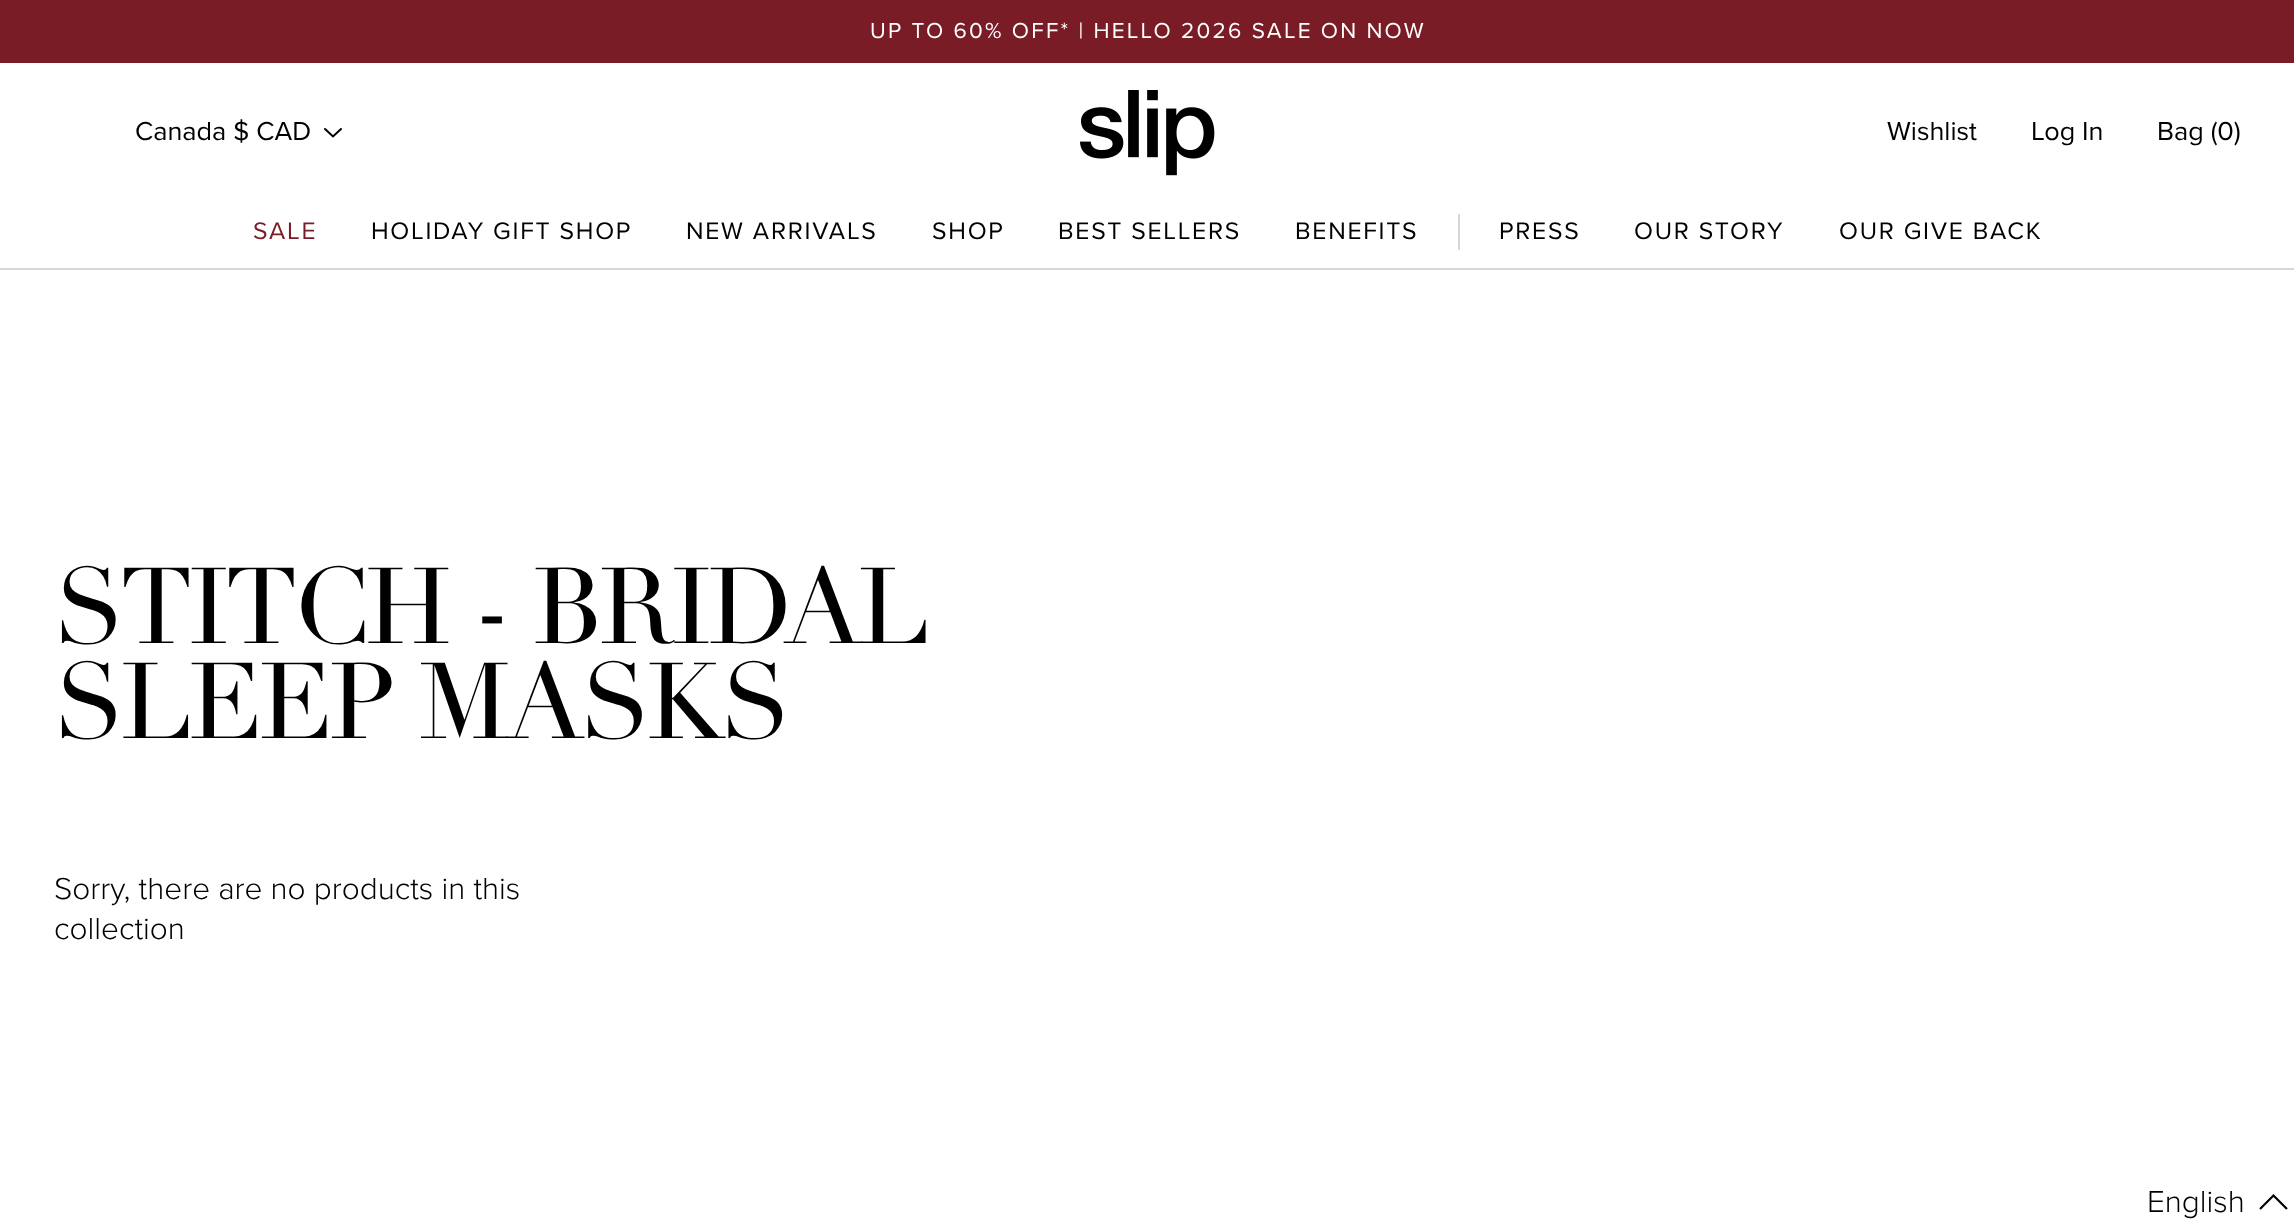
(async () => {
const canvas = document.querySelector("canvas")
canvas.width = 2294
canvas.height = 1224
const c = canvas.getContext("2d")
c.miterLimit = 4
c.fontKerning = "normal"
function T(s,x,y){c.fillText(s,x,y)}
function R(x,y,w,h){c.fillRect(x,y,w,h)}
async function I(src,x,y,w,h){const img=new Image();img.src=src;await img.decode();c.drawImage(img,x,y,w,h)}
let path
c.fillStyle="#fff"
R(0,0,2294,1224)
c.fillStyle="#791c26"
R(0,0,2294,63)
c.letterSpacing="2.25px"
c.font="22.5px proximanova"
c.fillStyle="#fff"
T("UP TO 60% OFF* | HELLO 2026 SALE ON NOW",870,38)
c.fillStyle="#d8d6d4"
R(0,268,2294,2)
c.letterSpacing="0px"
c.font="27px proximanova"
c.fillStyle="#000"
T("Canada $ CAD",135,140)
path = new Path2D("M325 129l8 7.5l8-7.5")
c.strokeStyle="#000"
c.lineWidth=2
c.lineCap="round"
c.stroke(path)
await I("1.png",1080,90,135,86)
T("Wishlist",1887,140)
T("Log In",2031,140)
T("Bag (0)",2157,140)
c.letterSpacing="1.75px"
c.font="24.75px proximanova"
c.fillStyle="#791c26"
T("SALE",253,239)
c.fillStyle="#000"
T("HOLIDAY GIFT SHOP",371,239)
T("NEW ARRIVALS",686,239)
T("SHOP",932,239)
T("BEST SELLERS",1058,239)
T("BENEFITS",1295,239)
c.fillStyle="#d8d6d4"
R(1458,214,2,36)
c.fillStyle="#000"
T("PRESS",1499,239)
T("OUR STORY",1634,239)
T("OUR GIVE BACK",1839,239)
c.letterSpacing="-4.25px"
c.font="105.75px Didot"
T("STITCH - BRIDAL",54,643)
T("SLEEP MASKS",54,738)
c.letterSpacing="0px"
c.font="300 31.5px Proxima Nova"
T("Sorry, there are no products in this",54,899)
T("collection",54,939)
T("English",2147,1212)
path = new Path2D("M2287 1209l-13.5-13.5l-13.5 13.5")
c.lineWidth=2.2
c.lineCap="butt"
c.stroke(path)
})()
